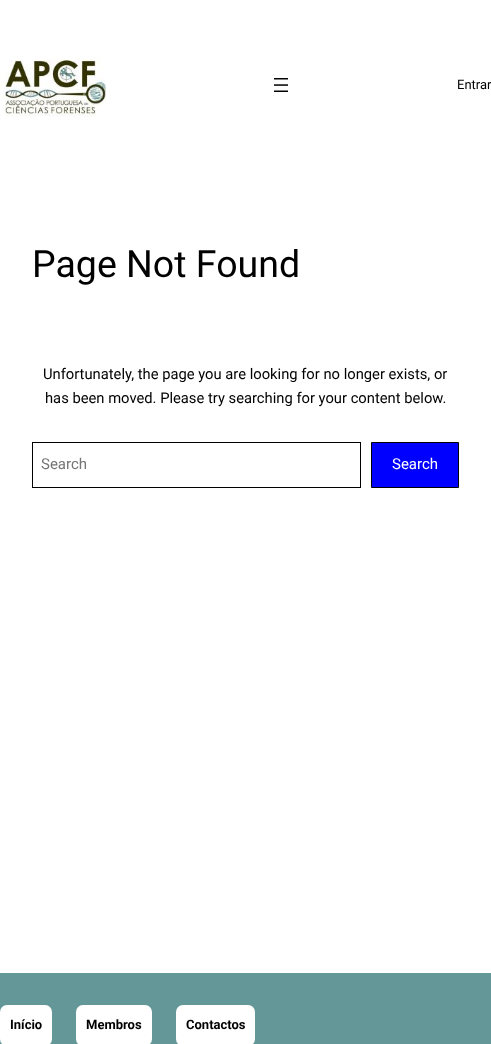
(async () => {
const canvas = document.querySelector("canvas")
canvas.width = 491
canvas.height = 1044
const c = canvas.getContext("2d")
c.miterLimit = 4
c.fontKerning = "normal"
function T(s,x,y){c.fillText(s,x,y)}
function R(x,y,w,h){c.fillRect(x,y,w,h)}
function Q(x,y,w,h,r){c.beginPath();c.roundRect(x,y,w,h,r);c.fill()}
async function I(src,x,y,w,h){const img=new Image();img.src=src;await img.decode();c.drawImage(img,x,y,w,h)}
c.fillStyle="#fff"
R(0,0,491,1044)
await I("1.png",0,55,106,62)
await I("2.png",274,78,14,14)
c.font="13px Roboto"
c.fillStyle="#000"
T("Entrar",457,89)
c.font="37.5px Roboto"
T("Page Not Found",32,277)
c.font="14.75px Roboto"
T("Unfortunately, the page you are looking for no longer exists, or",43,379)
T("has been moved. Please try searching for your content below.",45,403)
c.strokeStyle="#000001"
c.strokeRect(32.5,442.5,328,45)
c.font="15px Roboto"
c.fillStyle="#757575"
T("Search",41,469)
c.fillStyle="#00f"
c.beginPath()
c.rect(371.5,442.5,87,45)
c.fill()
c.stroke()
c.fillStyle="#fff"
T("Search",392,469)
c.fillStyle="#649798"
R(0,973,491,71)
c.fillStyle="#fff"
Q(0,1005,52,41,7)
c.font="bold 13px Roboto"
c.fillStyle="#000"
T("Início",10,1029)
c.fillStyle="#fff"
Q(76,1005,76,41,7)
c.fillStyle="#000"
T("Membros",86,1029)
c.fillStyle="#fff"
Q(176,1005,79,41,7)
c.fillStyle="#000"
T("Contactos",186,1029)
})()
